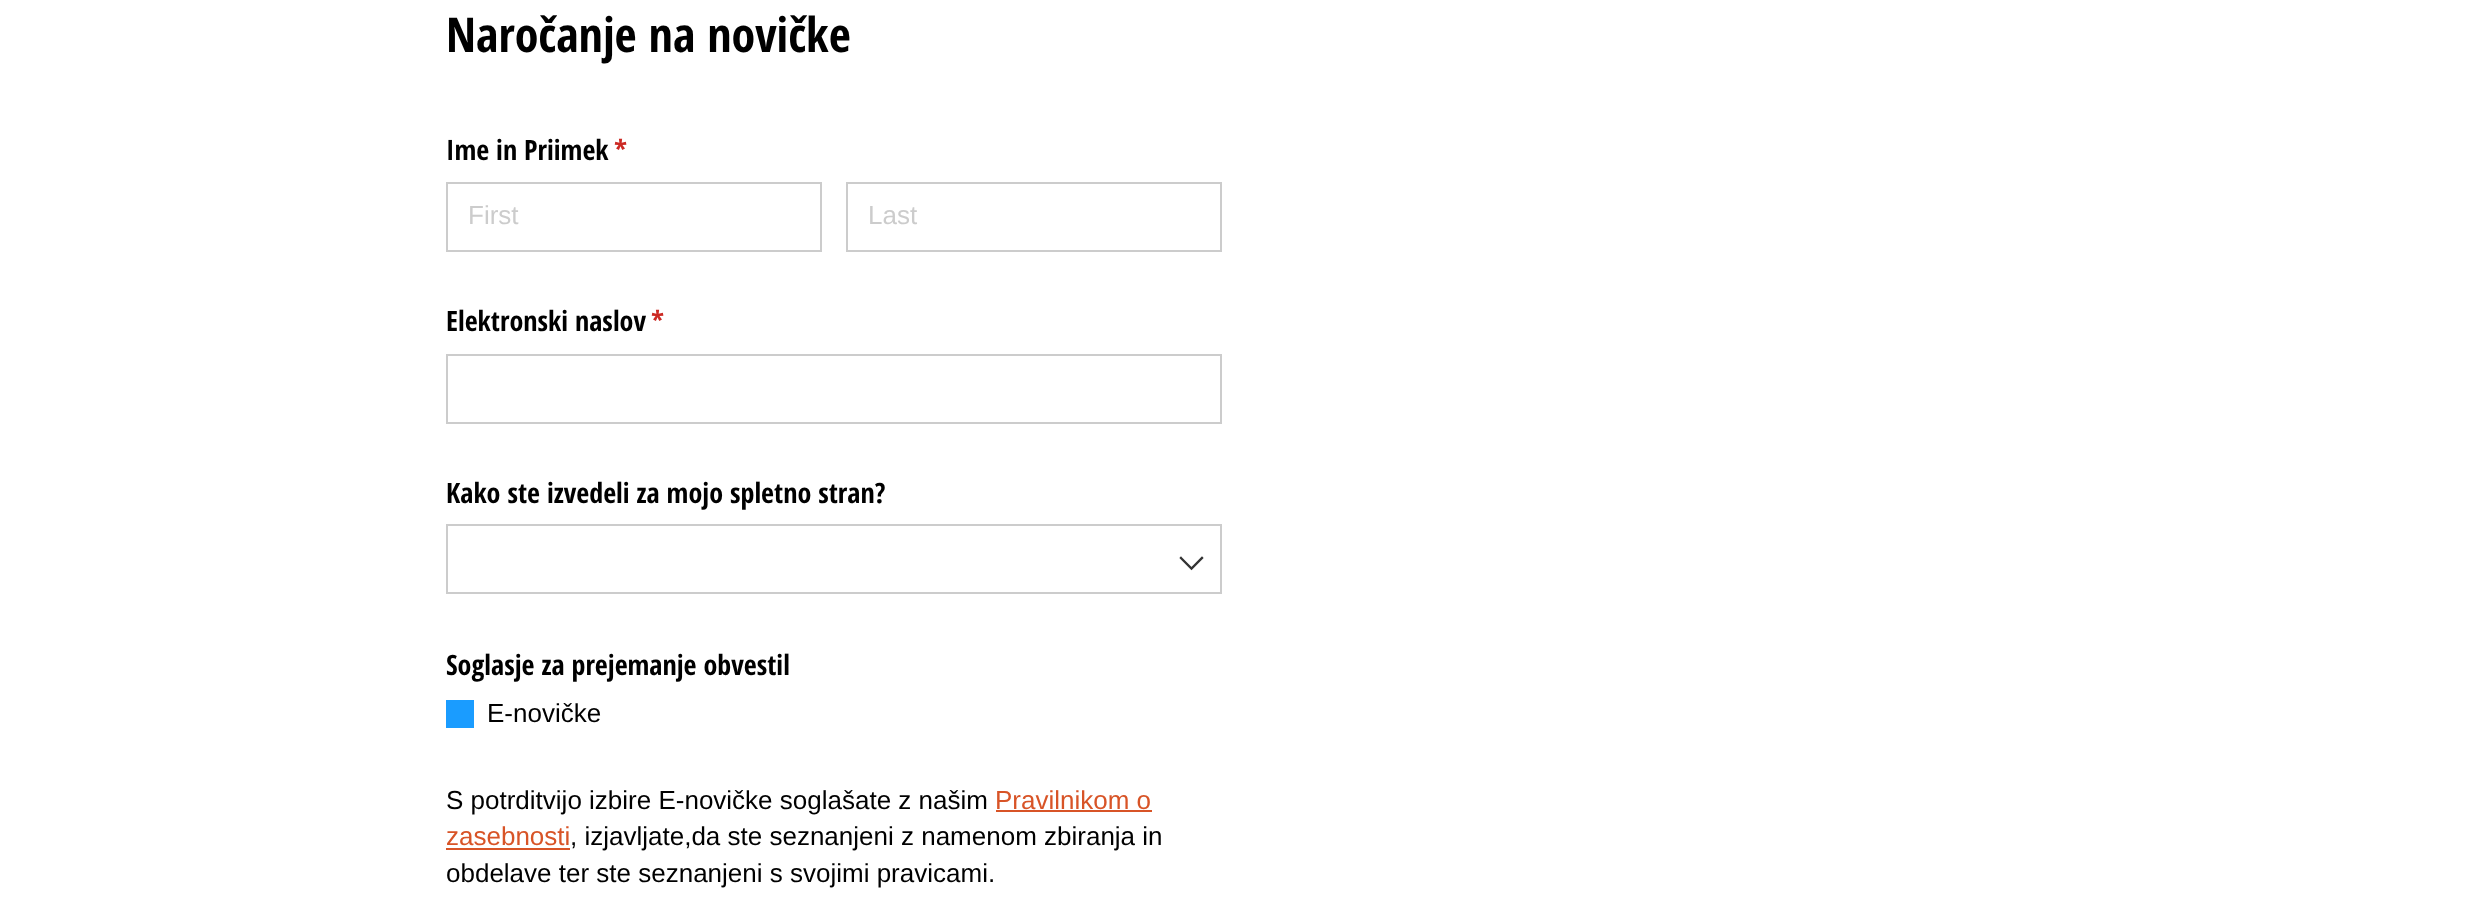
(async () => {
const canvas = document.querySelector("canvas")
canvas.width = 2491
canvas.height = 911
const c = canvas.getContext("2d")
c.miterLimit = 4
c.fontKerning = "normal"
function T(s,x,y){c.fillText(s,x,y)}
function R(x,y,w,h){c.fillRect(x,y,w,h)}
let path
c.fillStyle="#fff"
R(0,0,2491,911)
c.font="bold 48px Open Sans Condensed"
c.fillStyle="#000"
T("Naročanje na novičke",446,52)
c.font="bold 28.1px Open Sans Condensed"
T("Ime in Priimek",446,160)
c.fillStyle="#cc2a24"
T("*",614,160)
c.strokeStyle="#ccc"
c.lineWidth=2
c.strokeRect(447,183,374,68)
c.font="26px Liberation Sans"
c.fillStyle="#ccc"
T("First",468,224)
c.strokeRect(847,183,374,68)
T("Last",868,224)
c.font="bold 28.1px Open Sans Condensed"
c.fillStyle="#000"
T("Elektronski naslov",446,331)
c.fillStyle="#cc2a24"
T("*",651,331)
c.strokeRect(447,355,774,68)
c.fillStyle="#000"
T("Kako ste izvedeli za mojo spletno stran?",446,503)
c.strokeRect(447,525,774,68)
path = new Path2D("M1181 558l10.5 10.5l10.5-10.5")
c.strokeStyle="#333"
c.lineWidth=2.3
c.lineCap="square"
c.stroke(path)
T("Soglasje za prejemanje obvestil",446,675)
c.fillStyle="#1a9cff"
R(446,700,28,28)
c.font="26px Liberation Sans"
c.fillStyle="#000"
T("E-novičke",487,722)
T("S potrditvijo izbire E-novičke soglašate z našim",446,809)
c.fillStyle="#d85427"
T("Pravilnikom o",995,809)
R(996,810,156,2)
T("zasebnosti",446,845)
R(446,848,124,2)
c.fillStyle="#000"
T(", izjavljate,da ste seznanjeni z namenom zbiranja in",570,845)
T("obdelave ter ste seznanjeni s svojimi pravicami.",446,882)
})()
